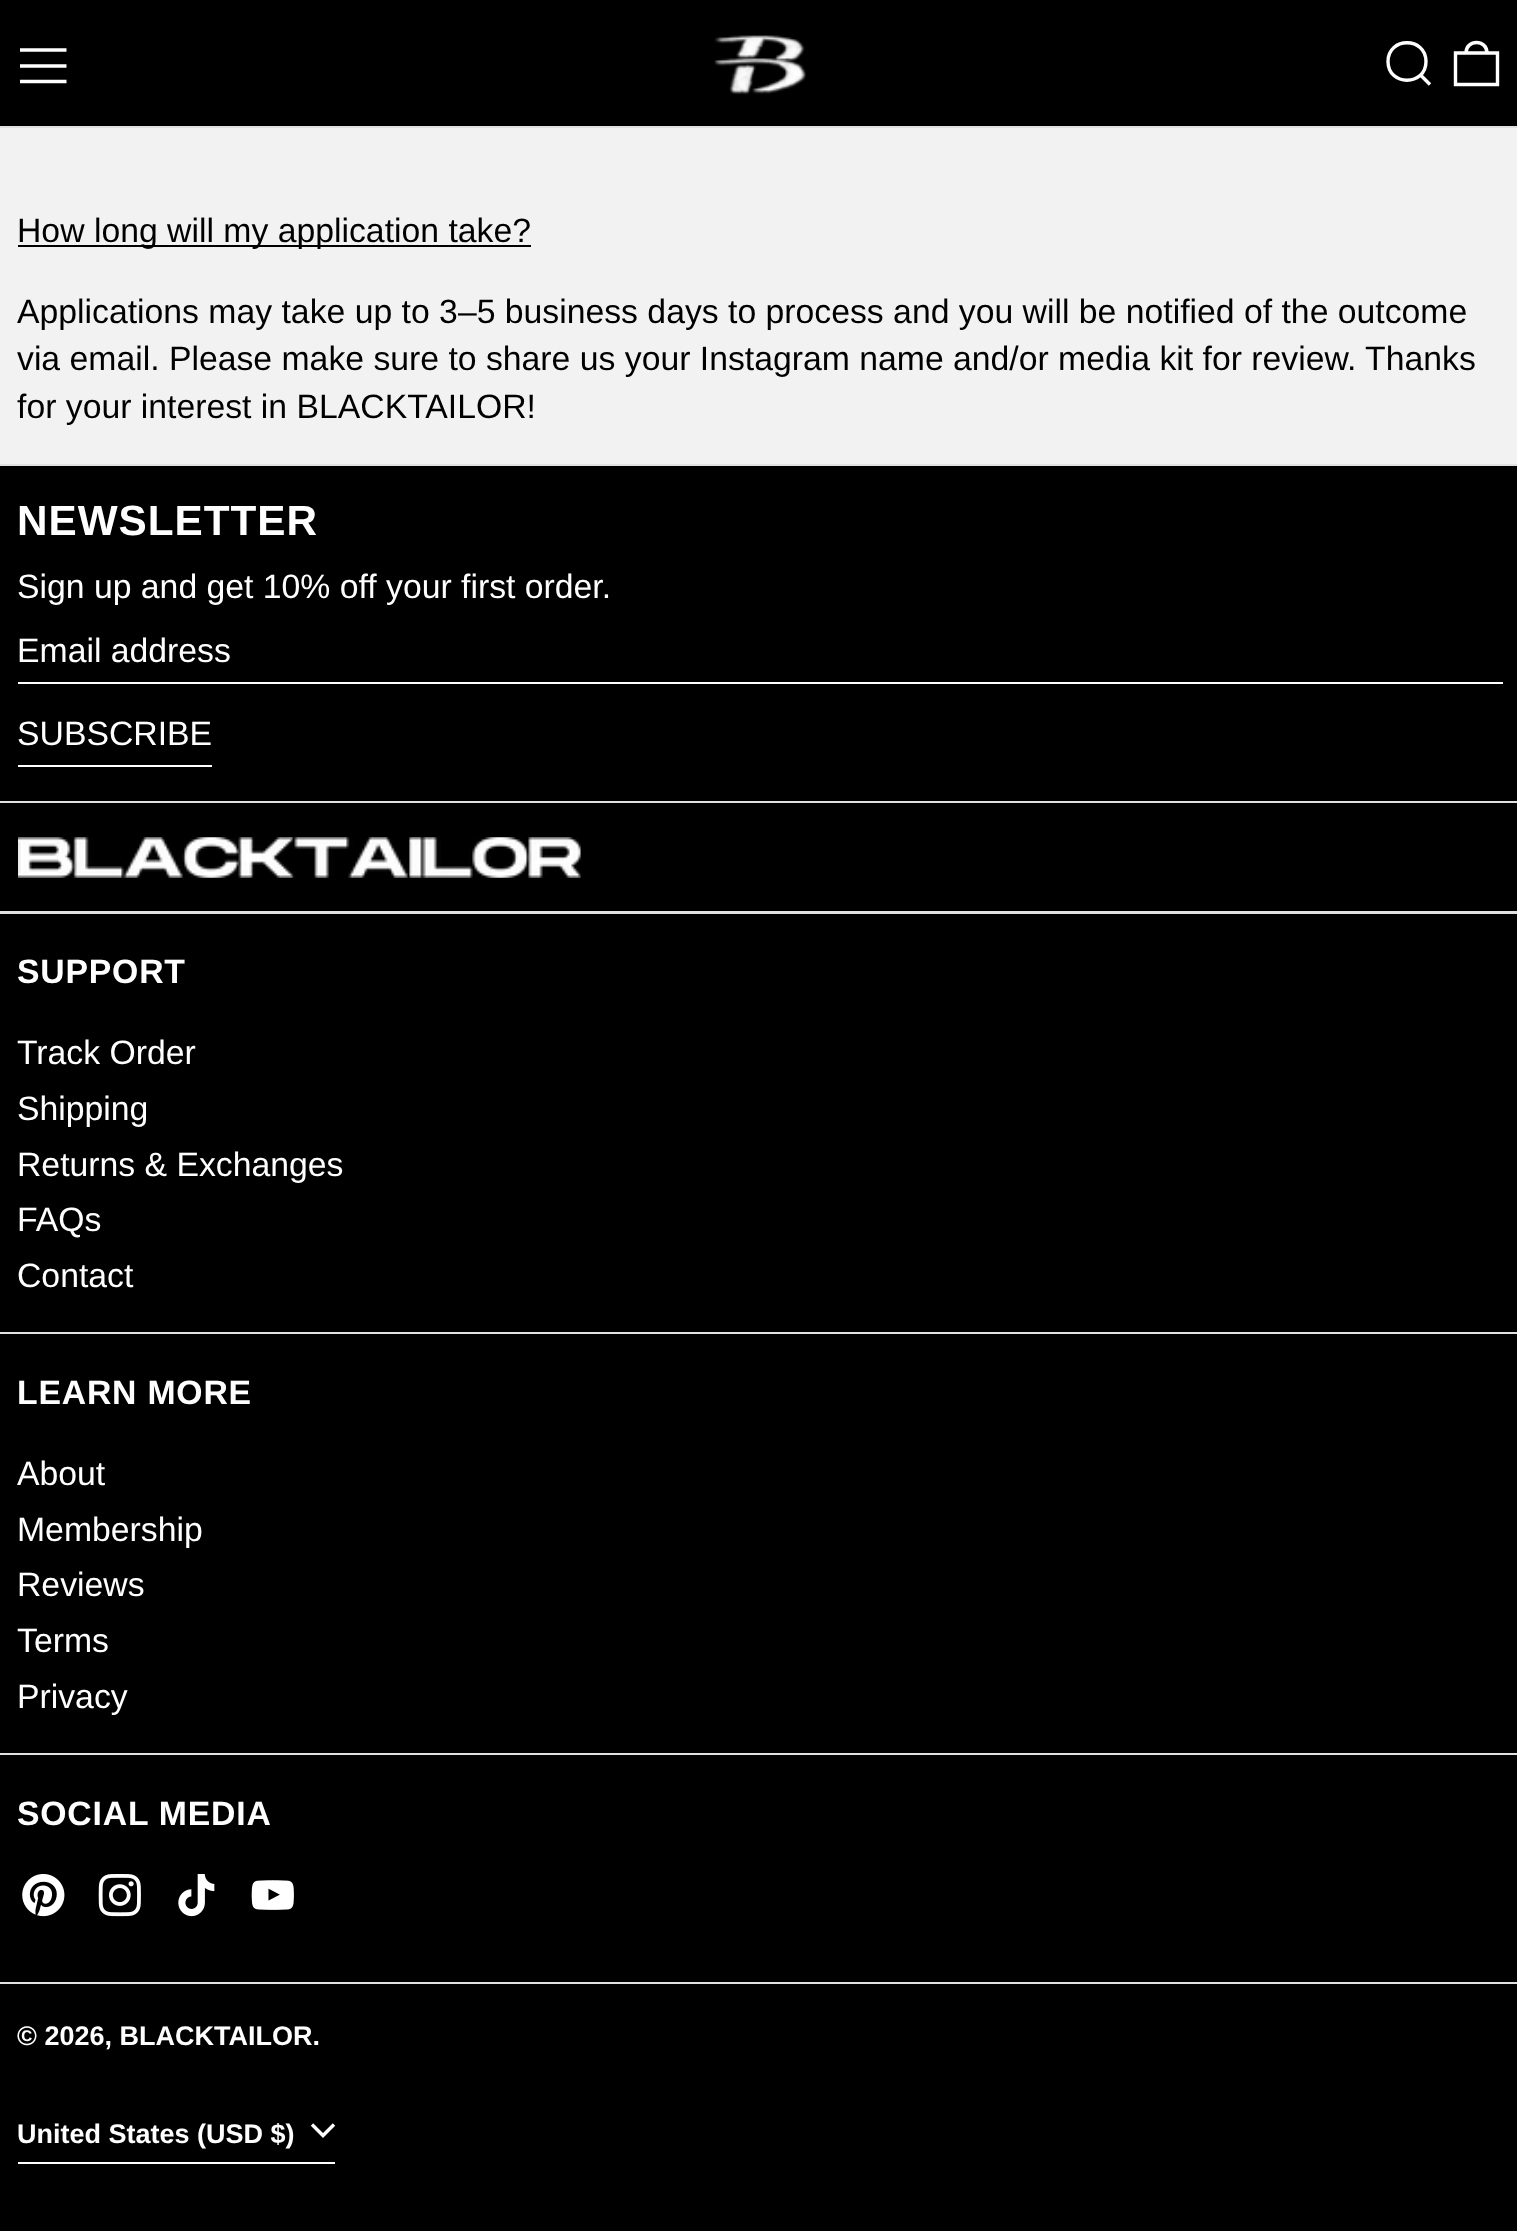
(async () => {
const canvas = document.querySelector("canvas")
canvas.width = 1517
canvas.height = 2231
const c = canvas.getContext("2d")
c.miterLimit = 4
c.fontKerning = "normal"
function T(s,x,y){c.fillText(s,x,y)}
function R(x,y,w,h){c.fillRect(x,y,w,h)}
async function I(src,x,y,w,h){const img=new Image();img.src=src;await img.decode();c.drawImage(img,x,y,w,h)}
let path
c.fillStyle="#f2f2f2"
R(0,0,1517,2231)
c.fillStyle="#000"
R(0,0,1517,126)
c.fillStyle="#e1e1e1"
R(0,126,1517,2)
path = new Path2D("M20 50h46.5m-46.5 16h46.5m-46.5 15.5h46.5")
c.strokeStyle="#fff"
c.lineWidth=3.4
c.stroke(path)
await I("1.png",714,35,92,60)
path = new Path2D("M1388 61.5c0 25 38 25 38 0c0-25-38-25-38 0zm32.5 13.5l9.5 9.5")
c.stroke(path)
path = new Path2D("M1455.5 53h42v31.5h-42zm31.5 0c0-14-21-14-21 0")
c.stroke(path)
R(0,464,1517,2)
c.fillStyle="#000"
R(18,245,513,2)
c.font="33.75px Liberation Sans"
T("How long will my application take?",17,242)
T("Applications may take up to 3–5 business days to process and you will be notified of the outcome",17,323)
T("via email. Please make sure to share us your Instagram name and/or media kit for review. Thanks",17,370)
T("for your interest in BLACKTAILOR!",17,418)
R(0,466,1517,1765)
c.fillStyle="#e1e1e1"
R(0,801,1517,2)
c.letterSpacing="1px"
c.font="bold 42.25px Liberation Sans"
c.fillStyle="#fff"
T("NEWSLETTER",17,535)
c.letterSpacing="0px"
c.font="33.75px Liberation Sans"
T("Sign up and get 10% off your first order.",17,598)
R(18,682,1485,2)
T("Email address",17,662)
R(18,765,194,2)
T("SUBSCRIBE",17,745)
c.fillStyle="#e1e1e1"
R(0,1982,1517,2)
R(0,911,1517,844)
await I("2.png",18,837,563,41)
c.fillStyle="#000"
R(0,914,1517,418)
c.letterSpacing="0.8px"
c.font="bold 33.75px Liberation Sans"
c.fillStyle="#fff"
T("SUPPORT",17,983)
c.letterSpacing="0px"
c.font="33.75px Liberation Sans"
T("Track Order",17,1064)
T("Shipping",17,1120)
T("Returns & Exchanges",17,1176)
T("FAQs",17,1231)
T("Contact",17,1287)
c.fillStyle="#000"
R(0,1334,1517,419)
c.letterSpacing="0.8px"
c.font="bold 33.75px Liberation Sans"
c.fillStyle="#fff"
T("LEARN MORE",17,1404)
c.letterSpacing="0px"
c.font="33.75px Liberation Sans"
T("About",17,1485)
T("Membership",17,1541)
T("Reviews",17,1596)
T("Terms",17,1652)
T("Privacy",17,1708)
c.letterSpacing="0.8px"
c.font="bold 33.75px Liberation Sans"
T("SOCIAL MEDIA",17,1825)
await I("3.png",22,1874,43,43)
await I("4.png",98,1874,43,43)
await I("5.png",178,1874,37,43)
await I("6.png",251,1880,43,30)
c.letterSpacing="0px"
c.font="bold 27px Liberation Sans"
T("© 2026, BLACKTAILOR.",17,2045)
R(18,2162,317,2)
T("United States (USD $)",17,2143)
path = new Path2D("M312 2124.5l11 11l11-11")
c.stroke(path)
})()
